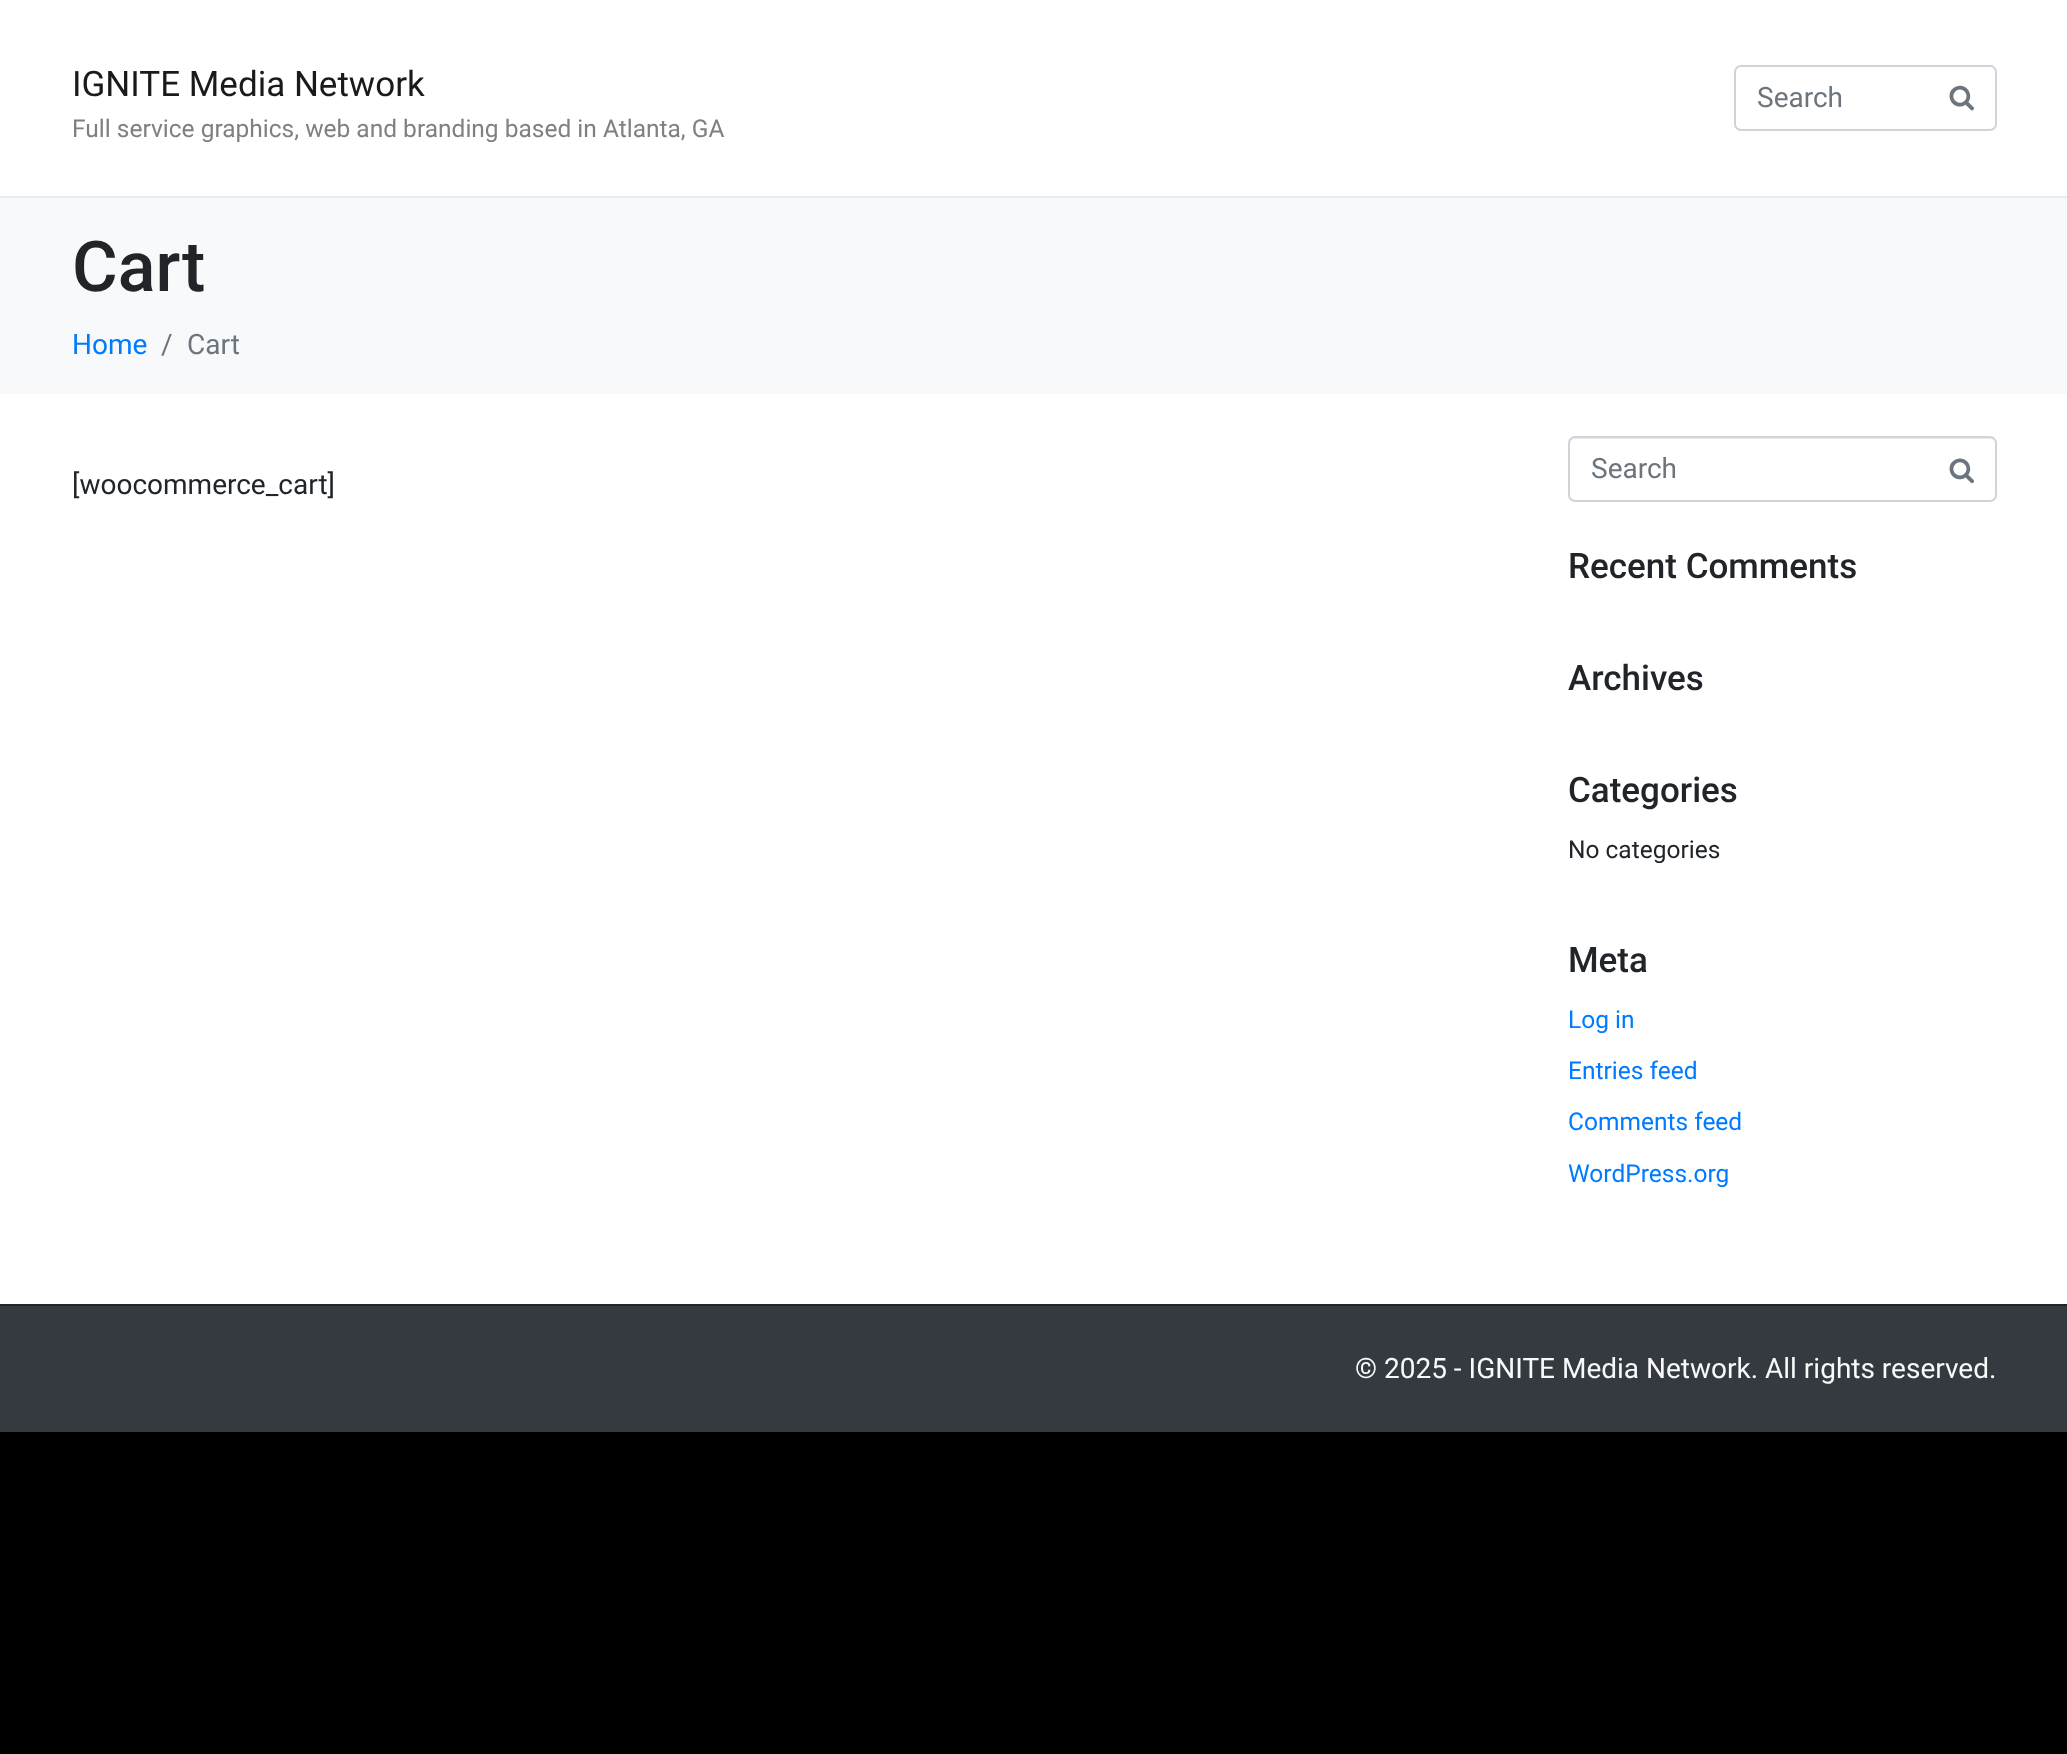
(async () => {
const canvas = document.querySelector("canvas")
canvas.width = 2067
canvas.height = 1754
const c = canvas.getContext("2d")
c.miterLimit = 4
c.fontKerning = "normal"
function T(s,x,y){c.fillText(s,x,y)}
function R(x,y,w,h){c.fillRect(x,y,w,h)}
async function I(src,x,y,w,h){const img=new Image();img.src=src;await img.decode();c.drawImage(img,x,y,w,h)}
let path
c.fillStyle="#000"
R(0,0,2067,1754)
c.fillStyle="#fff"
R(0,0,2067,196)
c.fillStyle="#e9ecef"
R(0,196,2067,2)
c.font="35px Roboto"
c.fillStyle="#1a1a1a"
T("IGNITE Media Network",72,96)
c.font="24.5px Roboto"
c.fillStyle="#808080"
T("Full service graphics, web and branding based in Atlanta, GA",72,137)
c.beginPath()
c.roundRect(1735,66,261,64,6)
c.strokeStyle="#ced4da"
c.lineWidth=2
c.stroke()
c.font="28px Roboto"
c.fillStyle="#6c757d"
T("Search",1757,107)
await I("1.png",1949,85,25,26)
c.fillStyle="#fff"
R(0,394,2067,910)
c.fillStyle="#f8f9fa"
R(0,198,2067,196)
c.font="500 70px Roboto"
c.fillStyle="#212529"
T("Cart",72,291)
c.font="28px Roboto"
c.fillStyle="#007bff"
T("Home",72,354)
c.fillStyle="#6c757d"
T("/",161,354)
T("Cart",187,354)
c.fillStyle="#212529"
T("[woocommerce_cart]",72,494)
c.fillStyle="#ececec"
path = new Path2D("M1575 439h415c3 0 5 3 5 5c0-3-2-6-5-6h-415c-3 0-5 3-5 6c0-2 2-5 5-5z")
c.fill(path)
c.beginPath()
c.roundRect(1569,437,427,64,6)
c.stroke()
c.fillStyle="#6c757d"
T("Search",1591,478)
await I("2.png",1949,458,25,26)
c.font="500 35px Roboto"
c.fillStyle="#212529"
T("Recent Comments",1568,578)
T("Archives",1568,690)
T("Categories",1568,802)
c.font="24.5px Roboto"
T("No categories",1568,858)
c.font="500 35px Roboto"
T("Meta",1568,972)
c.font="24.5px Roboto"
c.fillStyle="#007bff"
T("Log in",1568,1028)
T("Entries feed",1568,1079)
T("Comments feed",1568,1130)
T("WordPress.org",1568,1182)
c.fillStyle="#343a40"
R(0,1306,2067,126)
c.fillStyle="#212529"
R(0,1304,2067,2)
c.font="28px Roboto"
c.fillStyle="#f8f9fa"
T("© 2025 - IGNITE Media Network. All rights reserved.",1355,1378)
})()
